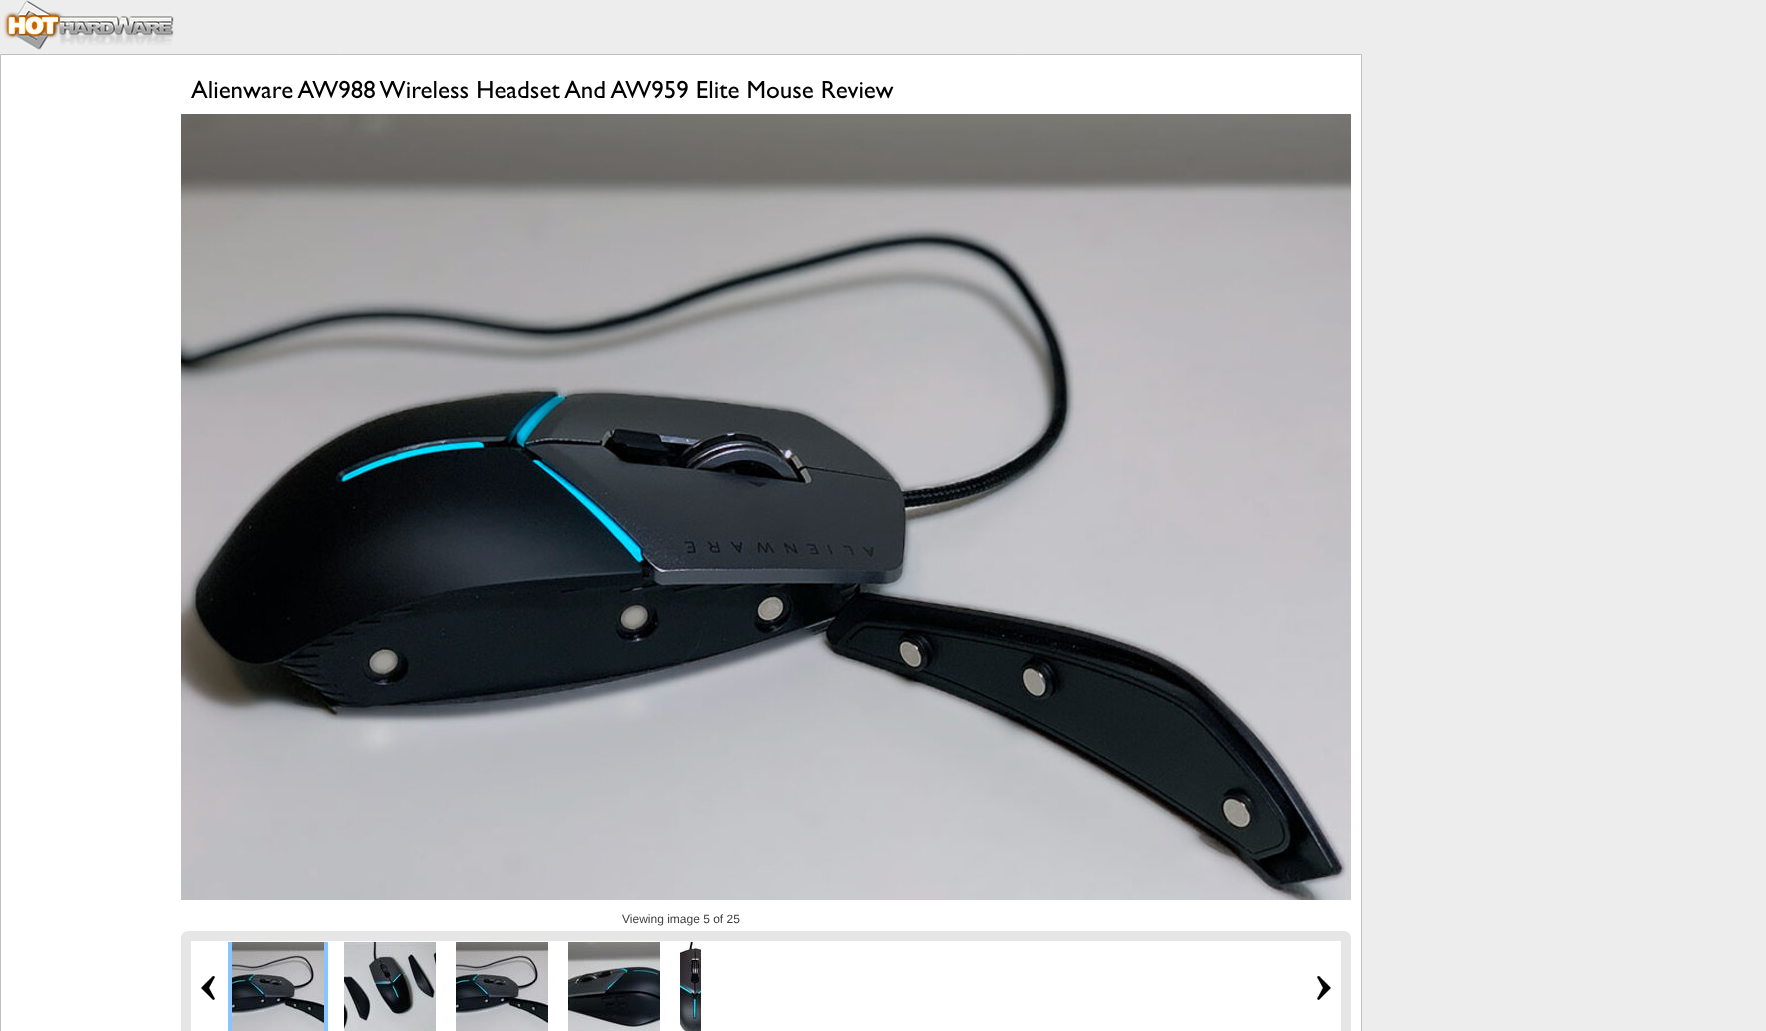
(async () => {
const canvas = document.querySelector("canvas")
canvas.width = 1766
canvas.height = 1031
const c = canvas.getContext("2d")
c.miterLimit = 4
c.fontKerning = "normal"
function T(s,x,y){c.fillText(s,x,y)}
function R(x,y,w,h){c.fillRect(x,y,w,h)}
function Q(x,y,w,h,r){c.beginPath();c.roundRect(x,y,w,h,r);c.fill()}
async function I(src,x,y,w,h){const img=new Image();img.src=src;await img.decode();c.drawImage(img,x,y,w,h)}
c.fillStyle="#ededed"
R(0,0,1766,1031)
await I("1.png",3,0,171,50)
c.fillStyle="#fff"
c.beginPath()
c.rect(.5,54.5,1361,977)
c.fill()
c.strokeStyle="#c0c0c0"
c.stroke()
c.font="25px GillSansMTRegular"
c.fillStyle="#000"
T("Alienware AW988 Wireless Headset And AW959 Elite Mouse Review",191,98)
await I("2.png",181,114,1170,786)
c.font="12px Liberation Sans"
c.fillStyle="#3f3f3f"
T("Viewing image 5 of 25",622,923)
c.fillStyle="#e6e6e6"
Q(181,931,1170,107,7)
c.fillStyle="#fff"
R(191,941,1150,90)
await I("3.png",201,976,14,24)
c.fillStyle="#87c5ff"
R(228,942,100,89)
await I("4.png",232,942,92,89)
await I("5.png",344,942,92,89)
await I("4.png",456,942,92,89)
await I("6.png",568,942,92,89)
await I("7.png",680,942,21,89)
await I("8.png",1317,976,14,24)
})()
